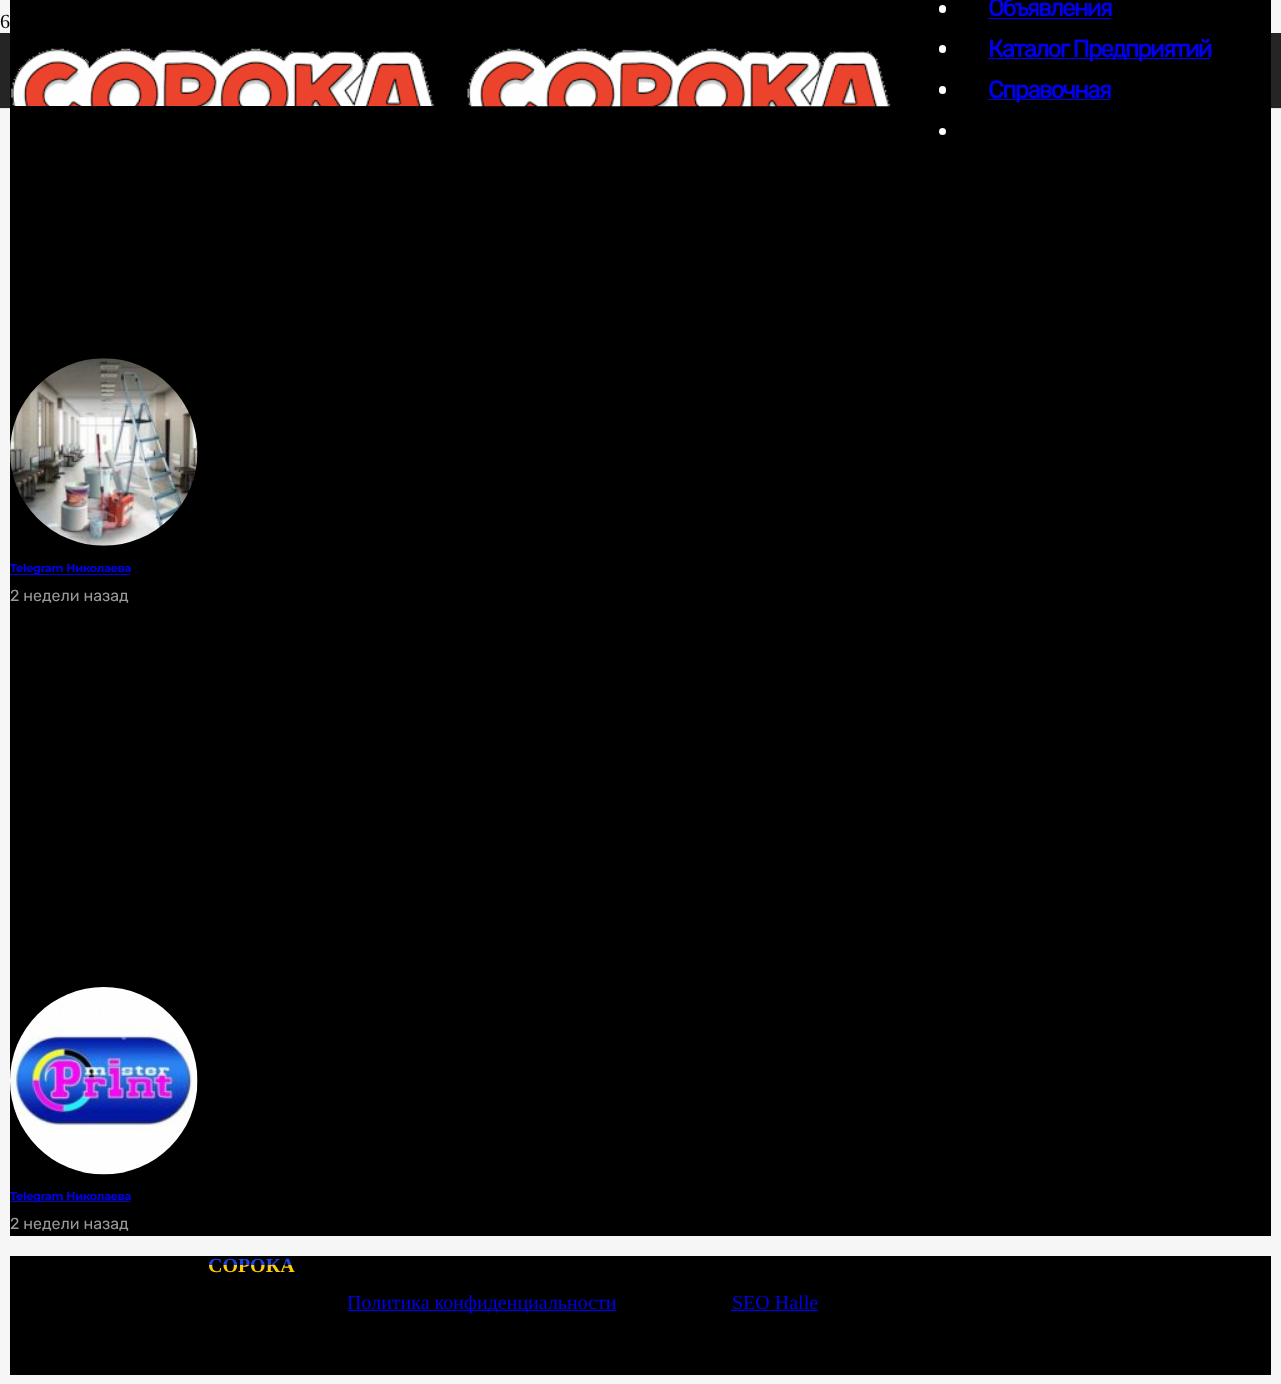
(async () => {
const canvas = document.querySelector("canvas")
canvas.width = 1281
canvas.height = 1384
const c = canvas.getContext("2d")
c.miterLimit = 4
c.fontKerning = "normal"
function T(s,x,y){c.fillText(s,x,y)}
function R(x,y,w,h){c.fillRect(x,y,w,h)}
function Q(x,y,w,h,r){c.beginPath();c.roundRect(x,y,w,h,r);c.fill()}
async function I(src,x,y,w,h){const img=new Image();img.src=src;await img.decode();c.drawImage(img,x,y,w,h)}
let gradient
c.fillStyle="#f6f6f6"
R(0,0,1281,1384)
c.fillStyle="#252525"
R(0,33,1281,75)
c.fillStyle="#e2e2e2"
R(0,108,1281,1)
c.font="20px Liberation Serif"
c.fillStyle="#000"
T("6",0,28)
R(10,0,1261,1236)
await I("1.png",11,48,423,58)
await I("2.png",467,48,424,59)
c.fillStyle="#fff"
Q(939,5,7,8,3.5)
c.letterSpacing="-1.7px"
c.font="bold 24px Rubik"
c.fillStyle="#00e"
T("Объявления",988,16)
R(988,18,123,1)
c.fillStyle="#fff"
Q(939,45,7,8,3.5)
c.fillStyle="#00e"
R(988,58,222,1)
T("Каталог Предприятий",988,57)
c.fillStyle="#fff"
Q(939,86,7,8,3.5)
c.fillStyle="#00e"
R(988,99,122,1)
T("Справочная",988,98)
c.fillStyle="#fff"
c.beginPath()
c.arc(942.5,131.5,3.5,0,7)
c.fill()
await I("3.png",10,358,188,188)
c.fillStyle="#00e"
R(10,574,120,1)
c.letterSpacing="-0.3px"
c.font="bold 11.4px Montserrat"
T("Telegram Николаева",10,572)
c.letterSpacing="0px"
c.font="300 16px Rubik"
c.fillStyle="#999"
T("2 недели назад",10,601)
await I("4.png",10,987,188,188)
c.fillStyle="#00e"
R(10,1201,120,1)
c.letterSpacing="-0.3px"
c.font="bold 11.4px Montserrat"
T("Telegram Николаева",10,1200)
c.letterSpacing="0px"
c.font="300 16px Rubik"
c.fillStyle="#999"
T("2 недели назад",10,1229)
c.fillStyle="#000"
R(10,1256,1261,119)
c.font="bold 20px Liberation Serif"
gradient = c.createLinearGradient(251,1254,251,1276)
gradient.addColorStop(.5,"#1a43e8")
gradient.addColorStop(.5,"#ffcd00")
c.fillStyle = gradient
T("СОРОКА",208,1272)
c.fillStyle="#00e"
R(348,1310,268,1)
c.font="20px Liberation Serif"
T("Политика конфиденциальности",347,1309)
T("SEO Halle",732,1309)
R(731,1310,87,1)
})()
